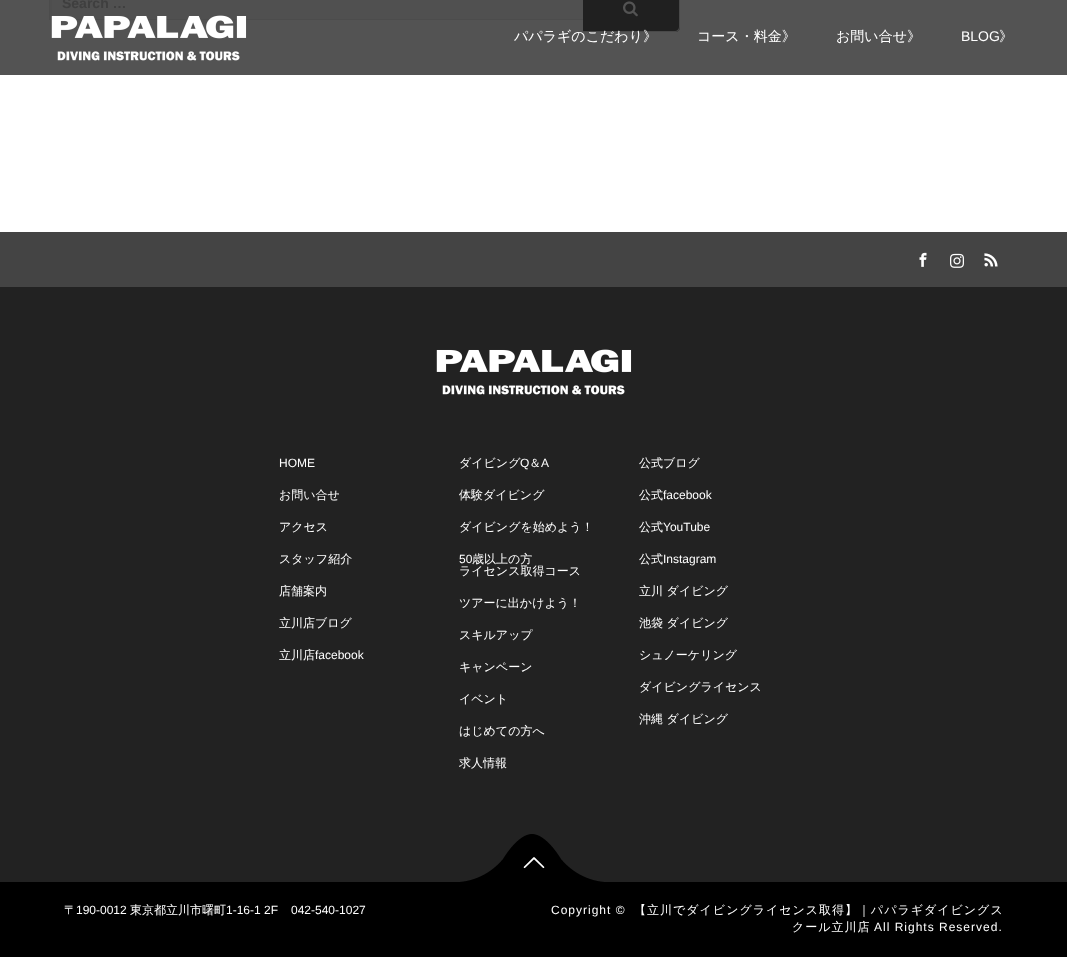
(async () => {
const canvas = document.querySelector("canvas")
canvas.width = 1067
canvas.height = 957
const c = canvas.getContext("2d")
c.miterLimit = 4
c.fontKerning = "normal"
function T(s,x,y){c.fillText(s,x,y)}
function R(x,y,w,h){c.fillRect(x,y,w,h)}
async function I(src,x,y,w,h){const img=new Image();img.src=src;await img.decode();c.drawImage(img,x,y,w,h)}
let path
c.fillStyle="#fff"
R(0,0,1067,957)
c.fillStyle="#535353"
R(0,0,1067,75)
c.fillStyle="#505050"
R(52,0,531,19)
c.save()
c.beginPath()
c.rect(50,0,534,19)
c.clip()
c.fillStyle="#4e4e4e"
path = new Path2D("M-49-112h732v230h-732zm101 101h534v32h-534z")
c.fill(path,"evenodd")
c.restore()
c.fillStyle="#4c4c4c"
R(49,19,535,1)
R(49,0,1,20)
c.font="bold 14px Liberation Sans"
c.fillStyle="#3f3f3f"
T("Search …",62,8)
c.fillStyle="#202020"
path = new Path2D("M583-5h92c3 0 5 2 5 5v27c0 3-2 5-5 5h-92z")
c.fill(path)
c.fillStyle="#494949"
path = new Path2D("M583-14h92c3 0 5 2 5 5v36c0 3-2 5-5 5h-92zm0 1h92c2 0 4 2 4 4v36c0 2-2 4-4 4h-92z")
c.fill(path,"evenodd")
await I("1.png",623,1,15,16)
await I("2.png",51,15,196,46)
c.font="500 14px WenQuanYi Zen Hei"
c.fillStyle="#fff"
T("パパラギのこだわり》",514,41)
T("コース・料金》",697,41)
T("お問い合せ》",836,41)
c.font="14px Liberation Sans"
T("BLOG",961,41)
c.font="500 14px WenQuanYi Zen Hei"
T("》",999,41)
c.fillStyle="#444"
R(0,232,1067,55)
await I("3.png",919,252,8,15)
await I("4.png",950,253,14,15)
await I("5.png",984,253,14,14)
c.fillStyle="#222"
R(0,287,1067,595)
await I("6.png",436,349,196,46)
c.font="12px Liberation Sans"
c.fillStyle="#fff"
T("HOME",279,467)
c.font="500 12px WenQuanYi Zen Hei"
T("お問い合せ",279,499)
T("アクセス",279,531)
T("スタッフ紹介",279,563)
T("店舗案内",279,595)
T("立川店ブログ",279,627)
T("立川店",279,659)
c.font="12px Liberation Sans"
T("facebook",315,659)
c.font="500 12px WenQuanYi Zen Hei"
T("ダイビング",459,467)
c.font="12px Liberation Sans"
T("Q",520,467)
c.font="500 12px WenQuanYi Zen Hei"
T("＆",529,467)
c.font="12px Liberation Sans"
T("A",541,467)
c.font="500 12px WenQuanYi Zen Hei"
T("体験ダイビング",459,499)
T("ダイビングを始めよう！",459,531)
c.font="12px Liberation Sans"
T("50",459,563)
c.font="500 12px WenQuanYi Zen Hei"
T("歳以上の方",472,563)
T("ライセンス取得コース",459,575)
T("ツアーに出かけよう！",459,607)
T("スキルアップ",459,639)
T("キャンペーン",459,671)
T("イベント",459,703)
T("はじめての方へ",459,735)
T("求人情報",459,767)
T("公式ブログ",639,467)
T("公式",639,499)
c.font="12px Liberation Sans"
T("facebook",663,499)
c.font="500 12px WenQuanYi Zen Hei"
T("公式",639,531)
c.font="12px Liberation Sans"
T("YouTube",663,531)
c.font="500 12px WenQuanYi Zen Hei"
T("公式",639,563)
c.font="12px Liberation Sans"
T("Instagram",663,563)
c.font="500 12px WenQuanYi Zen Hei"
T("立川 ダイビング",639,595)
T("池袋 ダイビング",639,627)
T("シュノーケリング",639,659)
T("ダイビングライセンス",639,691)
T("沖縄 ダイビング",639,723)
await I("7.png",460,834,144,48)
await I("8.png",523,857,22,12)
c.fillStyle="#000"
R(0,882,1067,75)
c.fillStyle="#fff"
T("〒",64,914)
c.font="12px Liberation Sans"
T("190-0012",76,914)
c.font="500 12px WenQuanYi Zen Hei"
T("東京都立川市曙町",130,914)
c.font="12px Liberation Sans"
T("1-16-1 2F",226,914)
T("042-540-1027",291,914)
c.letterSpacing="1px"
T("Copyright ©",551,914)
c.font="500 12px WenQuanYi Zen Hei"
T("【立川でダイビングライセンス取得】｜パパラギダイビングス",634,914)
T("クール立川店",792,931)
c.font="12px Liberation Sans"
T("All Rights Reserved.",874,931)
})()
